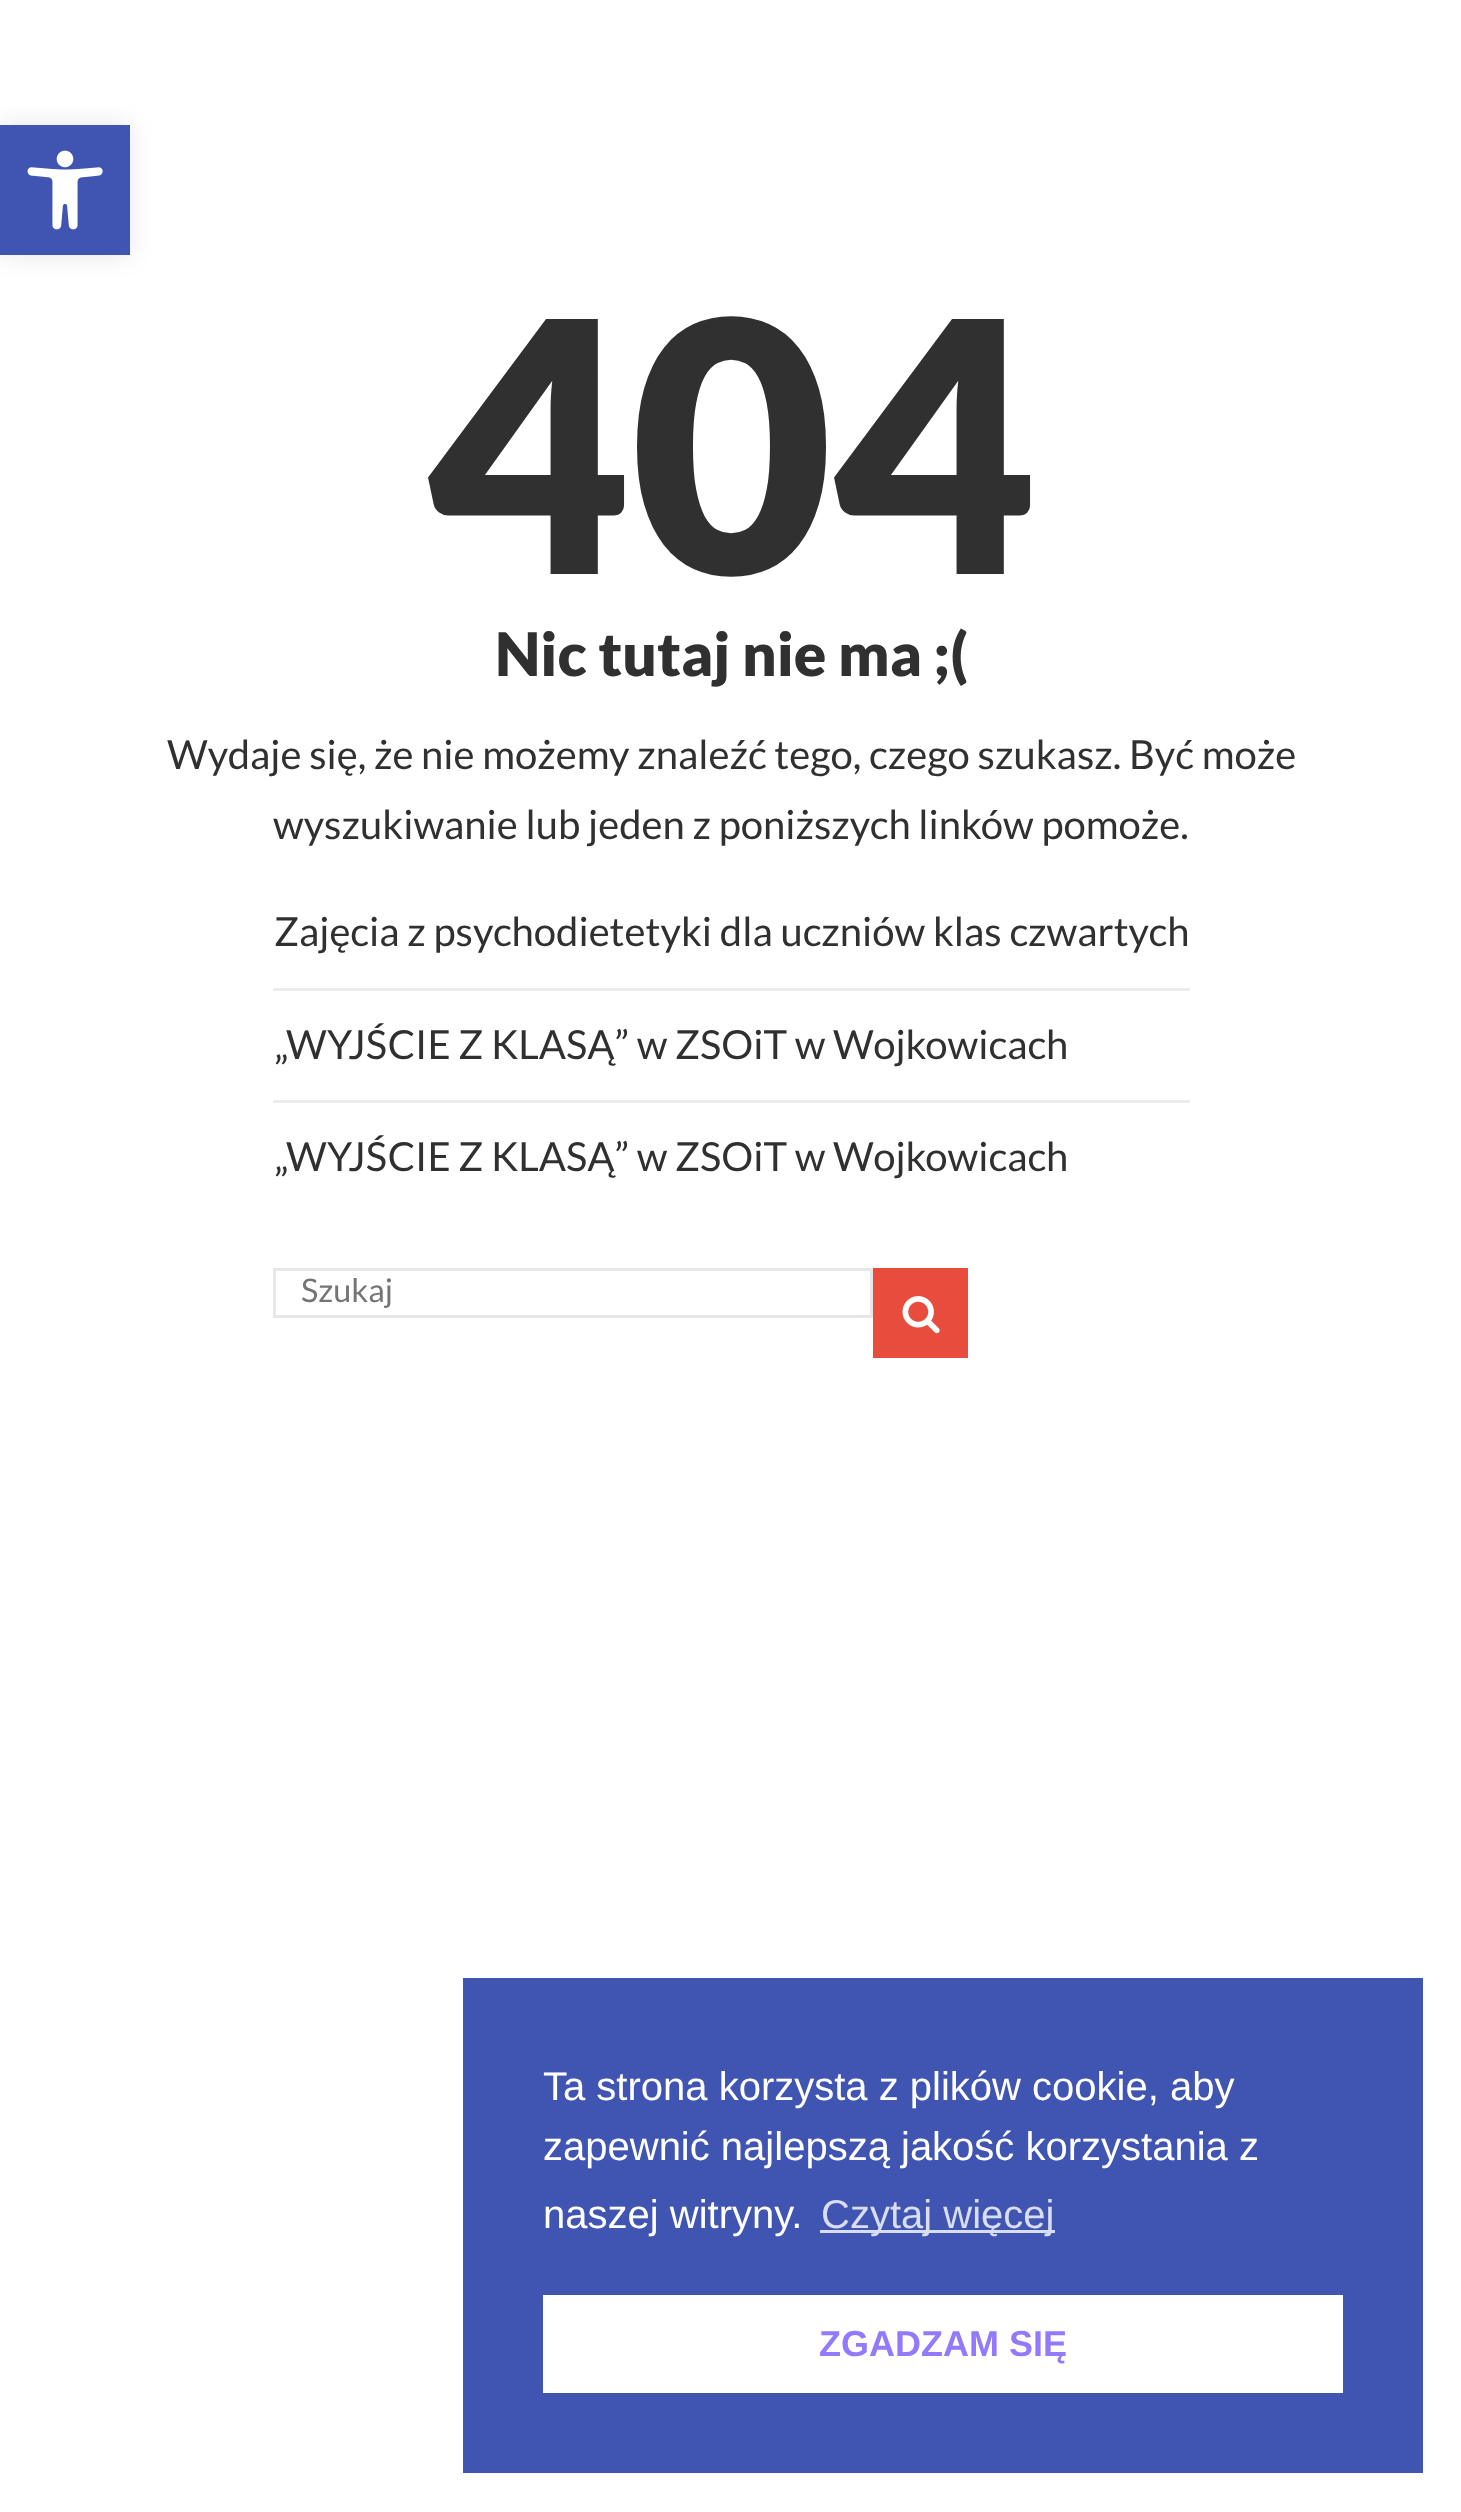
(async () => {
const canvas = document.querySelector("canvas")
canvas.width = 1461
canvas.height = 2512
const c = canvas.getContext("2d")
c.miterLimit = 4
c.fontKerning = "normal"
function T(s,x,y){c.fillText(s,x,y)}
function R(x,y,w,h){c.fillRect(x,y,w,h)}
async function I(src,x,y,w,h){const img=new Image();img.src=src;await img.decode();c.drawImage(img,x,y,w,h)}
c.fillStyle="#fff"
R(0,0,1461,2512)
c.fillStyle="#0000001a"
c.filter="blur(12.5px)"
c.beginPath()
c.rect(0,125,130,130)
c.fill()
c.filter="none"
c.fillStyle="#4054b2"
R(0,125,130,130)
await I("1.png",27,150,76,80)
c.font="900 350px Lato"
c.fillStyle="#303030"
T("404",427,574)
c.font="900 60px Lato"
T("Nic tutaj nie ma ;(",495,676)
c.font="40px Lato"
T("Wydaje się, że nie możemy znaleźć tego, czego szukasz. Być może",167,769)
T("wyszukiwanie lub jeden z poniższych linków pomoże.",273,839)
c.fillStyle="#ececec"
R(273,988,917,3)
c.fillStyle="#303030"
T("Zajęcia z psychodietetyki dla uczniów klas czwartych",274,946)
c.fillStyle="#ececec"
R(273,1100,917,3)
c.fillStyle="#303030"
T("„WYJŚCIE Z KLASĄ” w ZSOiT w Wojkowicach",274,1059)
T("„WYJŚCIE Z KLASĄ” w ZSOiT w Wojkowicach",274,1171)
c.strokeStyle="#e7e7e7"
c.lineWidth=3
c.strokeRect(274.5,1269.5,597,47)
c.font="32.5px Lato"
c.fillStyle="#757575"
T("Szukaj",301,1302)
c.fillStyle="#e74c3c"
R(873,1268,95,90)
await I("2.png",902,1296,38,38)
c.fillStyle="#4054b2"
R(463,1978,960,495)
c.font="40px Liberation Sans"
c.fillStyle="#fff"
T("Ta strona korzysta z plików cookie, aby",543,2100)
T("zapewnić najlepszą jakość korzystania z",543,2160)
T("naszej witryny.",543,2228)
c.fillStyle="#d9ddf0"
R(820,2230,235,3)
T("Czytaj więcej",821,2228)
c.fillStyle="#fff"
R(543,2295,800,98)
c.font="bold 36px Liberation Sans"
c.fillStyle="#937afc"
T("ZGADZAM SIĘ",819,2356)
})()
